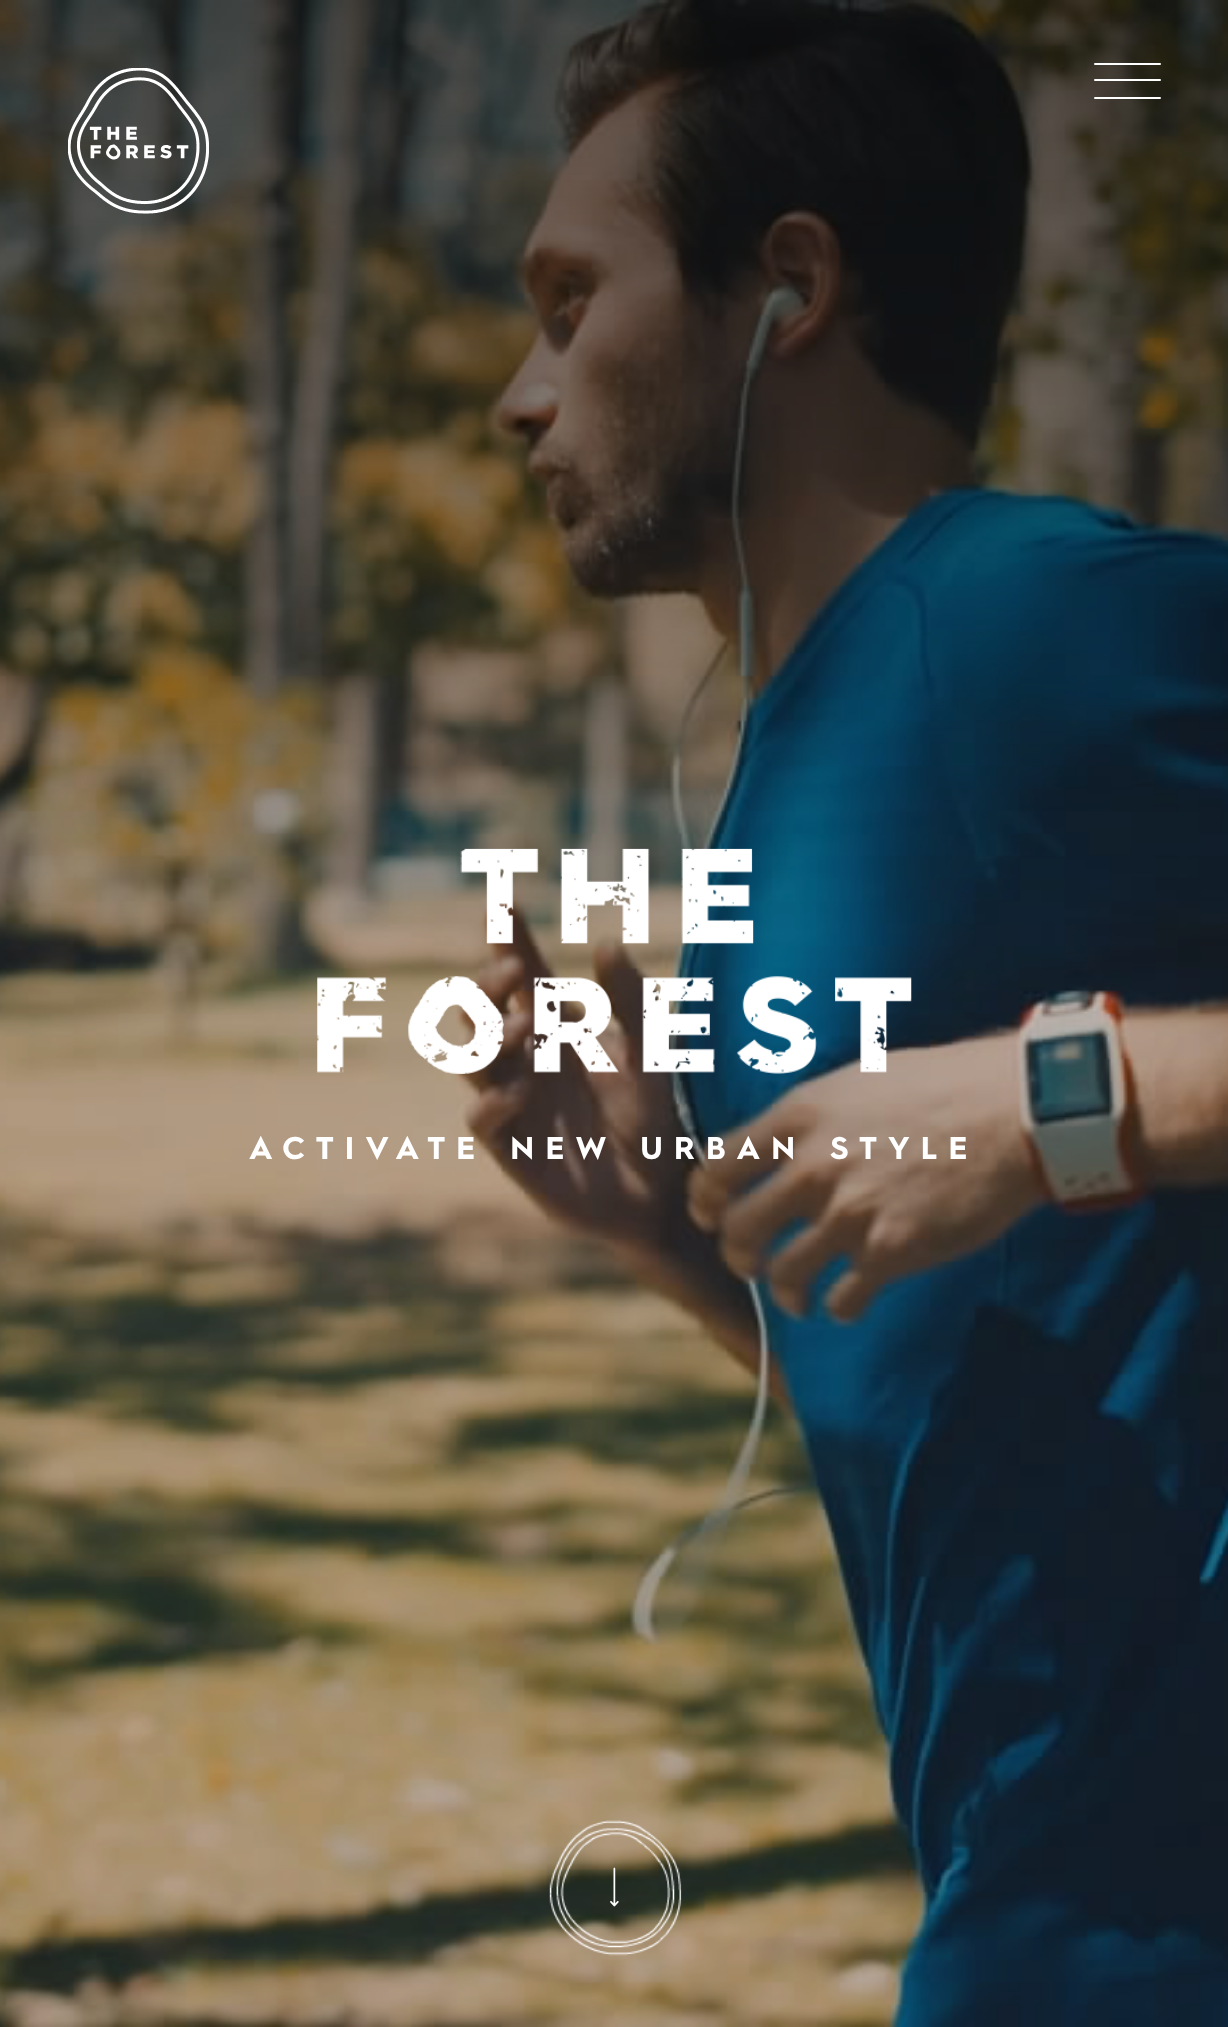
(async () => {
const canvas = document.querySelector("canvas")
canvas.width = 1228
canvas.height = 2027
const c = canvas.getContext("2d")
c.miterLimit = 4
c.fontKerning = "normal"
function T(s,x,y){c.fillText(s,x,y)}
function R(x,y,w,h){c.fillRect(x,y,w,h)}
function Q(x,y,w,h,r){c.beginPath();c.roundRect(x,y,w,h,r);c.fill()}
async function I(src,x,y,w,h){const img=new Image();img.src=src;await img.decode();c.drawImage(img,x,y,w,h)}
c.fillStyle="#fff"
R(0,0,1228,2027)
await I("2.png",0,0,1228,2027)
await I("1.png",68,68,141,146)
Q(1094,63,67,2,1)
Q(1094,79,67,2,1)
Q(1094,97,67,2,1)
await I("3.png",317,848,595,226)
c.letterSpacing="11.25px"
c.font="bold 31.5px 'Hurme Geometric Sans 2'"
T("ACTIVATE NEW URBAN STYLE",249,1159)
await I("4.png",549,1820,133,136)
await I("5.png",610,1867,9,40)
})()
